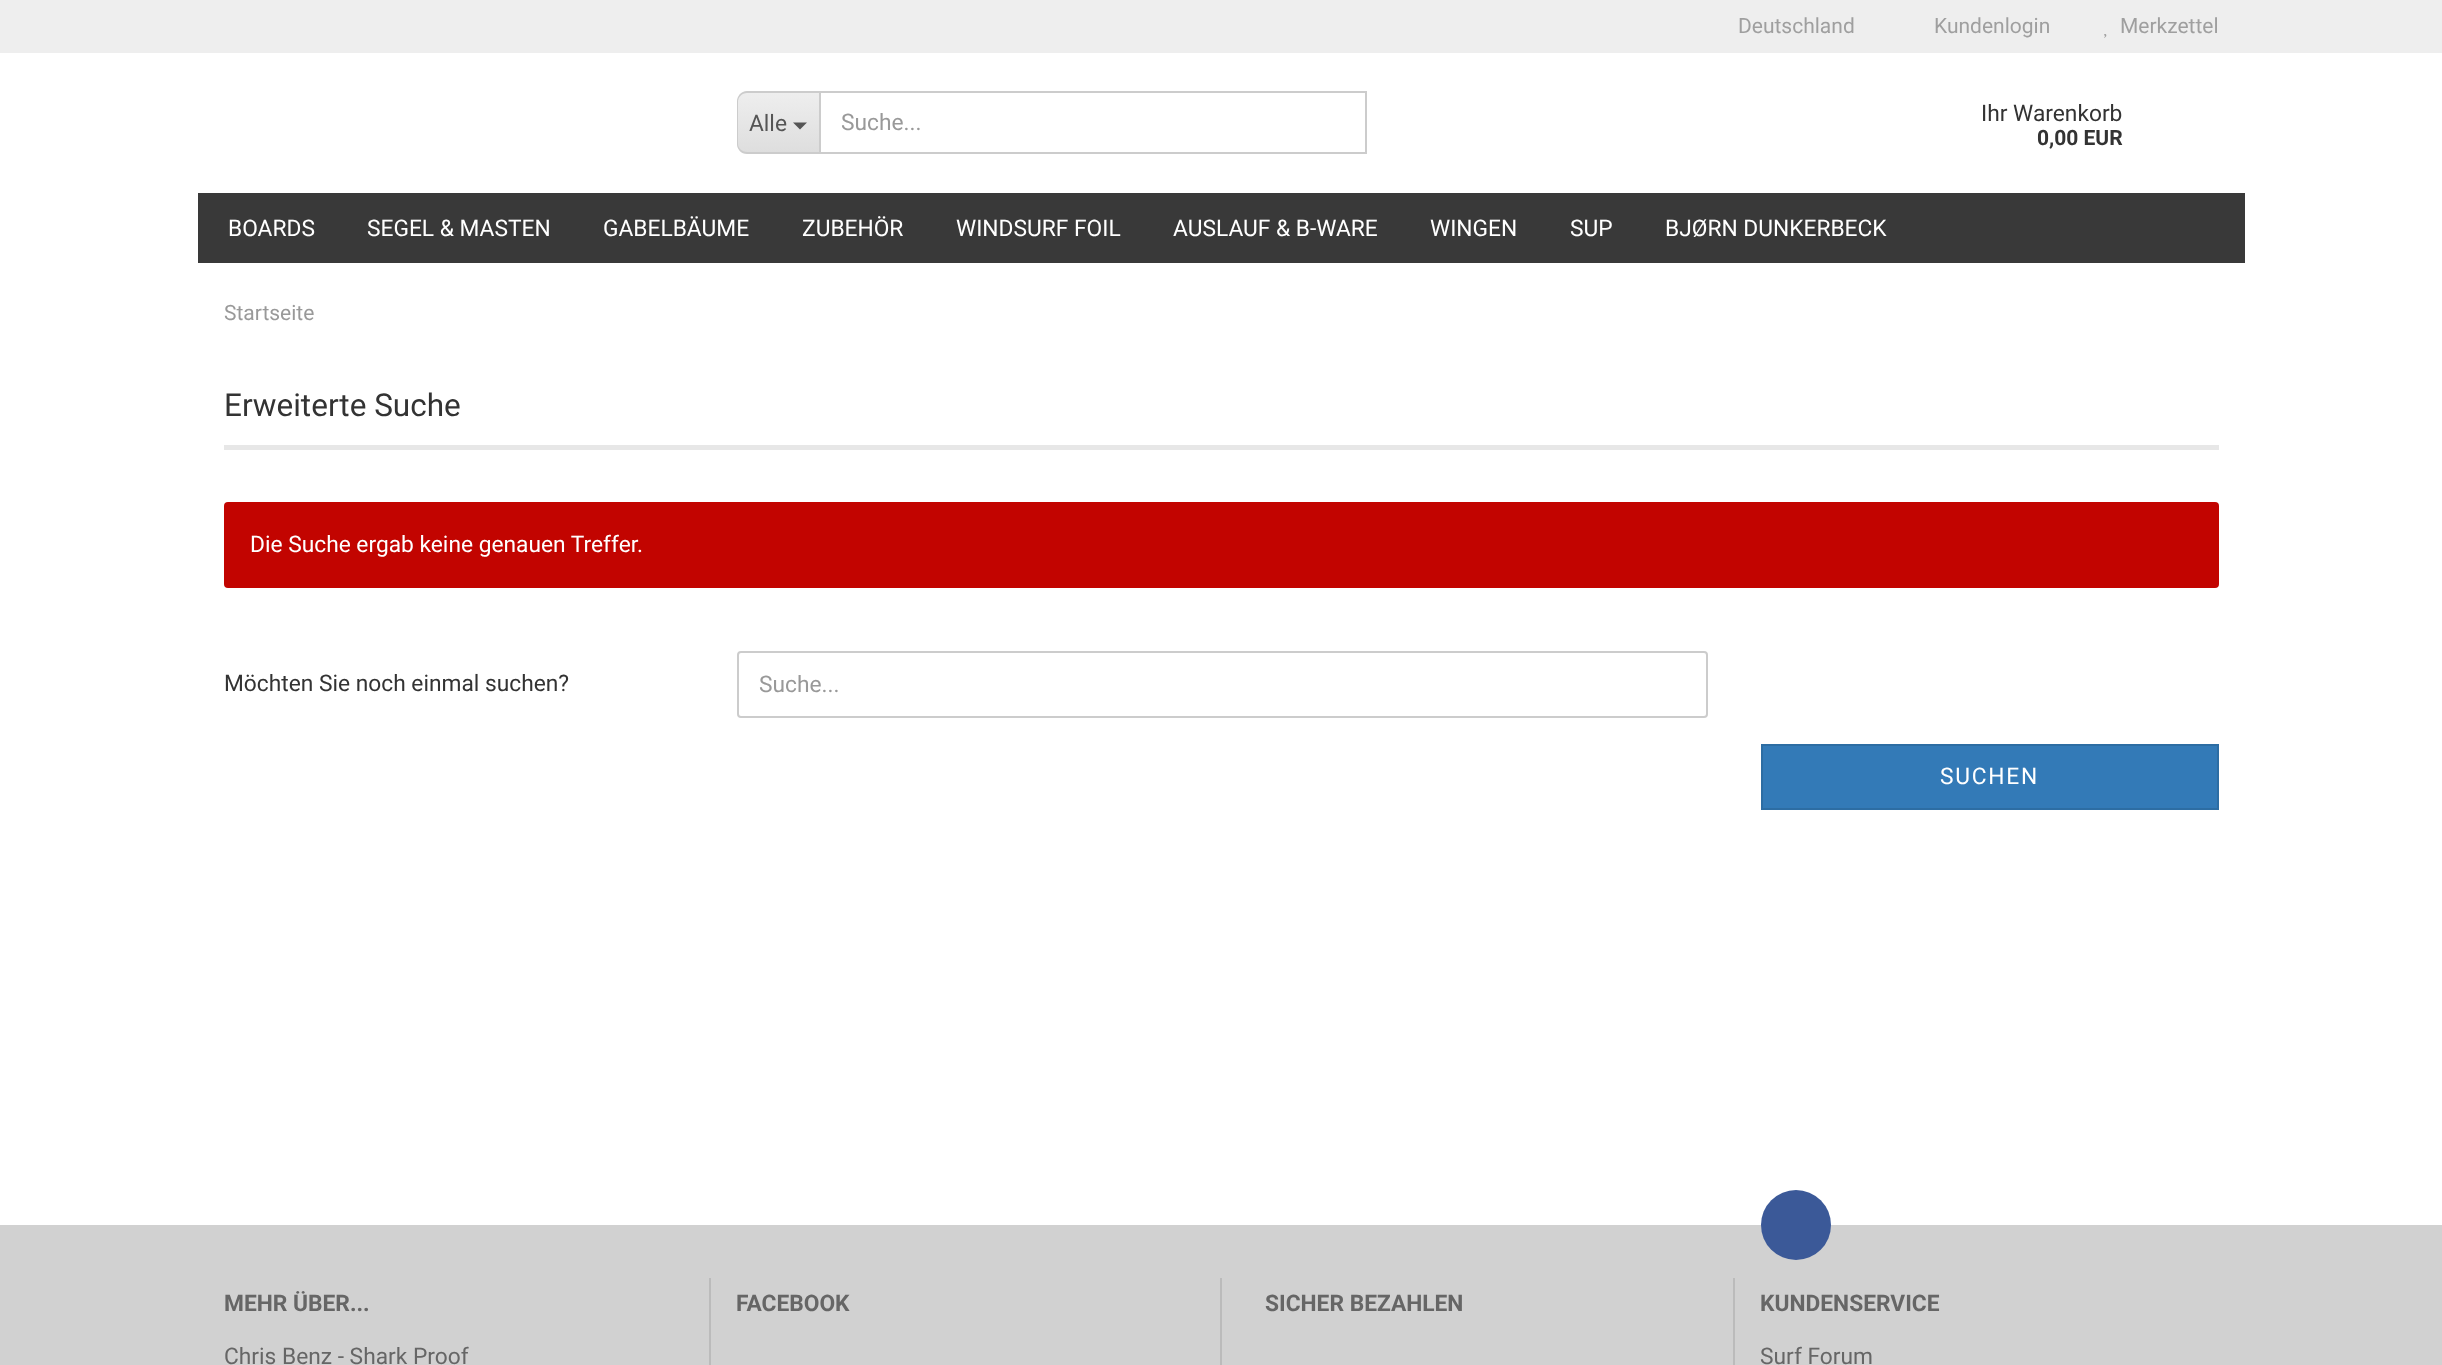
(async () => {
const canvas = document.querySelector("canvas")
canvas.width = 2442
canvas.height = 1365
const c = canvas.getContext("2d")
c.miterLimit = 4
c.fontKerning = "normal"
function T(s,x,y){c.fillText(s,x,y)}
function R(x,y,w,h){c.fillRect(x,y,w,h)}
function Q(x,y,w,h,r){c.beginPath();c.roundRect(x,y,w,h,r);c.fill()}
async function I(src,x,y,w,h){const img=new Image();img.src=src;await img.decode();c.drawImage(img,x,y,w,h)}
let gradient, path
c.fillStyle="#fff"
R(0,0,2442,1365)
c.fillStyle="#eee"
R(0,0,2442,53)
c.font="21px Roboto"
c.fillStyle="#9f9f9f"
T("Deutschland",1738,33)
T("Kundenlogin",1934,33)
T("Merkzettel",2120,33)
await I("1.png",2104,34,3,4)
c.save()
c.beginPath()
c.roundRect(737,91,82,63,[11,0,0,11])
c.clip()
gradient = c.createLinearGradient(779,93,779,152)
gradient.addColorStop(0,"#eee")
gradient.addColorStop(1,"#dedede")
c.fillStyle = gradient
R(737,93,82,59)
c.restore()
c.fillStyle="#ccc"
path = new Path2D("M747 91h72v63h-72c-6 0-10-5-10-10v-42c0-6 4-11 10-11zm0 2h72v59h-72c-5 0-9-4-9-8v-42c0-5 4-9 9-9z")
c.fill(path,"evenodd")
c.font="22.75px Roboto"
c.fillStyle="#555"
T("Alle",749,131)
path = new Path2D("M793 122.5h14l-7 7z")
c.fill(path)
c.strokeStyle="#ccc"
c.lineWidth=2
c.strokeRect(820,92,546,61)
c.fillStyle="#999"
T("Suche...",841,130)
c.fillStyle="#333"
T("Ihr Warenkorb",1981,121)
c.font="bold 21px Roboto"
T("0,00 EUR",2037,145)
c.fillStyle="#393939"
R(198,193,2047,70)
c.font="22.75px Roboto"
c.fillStyle="#fff"
T("BOARDS",228,236)
T("SEGEL & MASTEN",367,236)
T("GABELBÄUME",603,236)
T("ZUBEHÖR",802,236)
T("WINDSURF FOIL",956,236)
T("AUSLAUF & B-WARE",1173,236)
T("WINGEN",1430,236)
T("SUP",1570,236)
T("BJØRN DUNKERBECK",1665,236)
c.font="21px Roboto"
c.fillStyle="#999"
T("Startseite",224,320)
c.fillStyle="#e7e7e7"
R(224,445,1995,5)
c.font="31.5px Roboto"
c.fillStyle="#333"
T("Erweiterte Suche",224,416)
c.fillStyle="#c20400"
Q(224,502,1995,86,4)
c.font="22.75px Roboto"
c.fillStyle="#fff"
T("Die Suche ergab keine genauen Treffer.",250,552)
c.fillStyle="#333"
T("Möchten Sie noch einmal suchen?",224,691)
c.beginPath()
c.roundRect(738,652,969,65,3)
c.stroke()
c.fillStyle="#999"
T("Suche...",759,692)
c.fillStyle="#337ab7"
c.beginPath()
c.rect(1762,745,456,64)
c.fill()
c.strokeStyle="#2d6da3"
c.stroke()
c.letterSpacing="1.75px"
c.fillStyle="#fff"
T("SUCHEN",1940,784)
c.fillStyle="#d1d1d1"
R(0,1225,2442,140)
c.fillStyle="#bbb"
R(709,1278,2,87)
c.letterSpacing="0px"
c.font="bold 22.75px Roboto"
c.fillStyle="#666"
T("MEHR ÜBER...",224,1311)
c.font="22.75px Roboto"
T("Chris Benz - Shark Proof",224,1364)
c.fillStyle="#bbb"
R(1220,1278,2,87)
c.font="bold 22.75px Roboto"
c.fillStyle="#666"
T("FACEBOOK",736,1311)
c.fillStyle="#bbb"
R(1733,1278,2,87)
c.fillStyle="#666"
T("SICHER BEZAHLEN",1265,1311)
c.fillStyle="#3b5998"
c.beginPath()
c.arc(1796,1225,35,0,7)
c.fill()
c.fillStyle="#666"
T("KUNDENSERVICE",1760,1311)
c.font="22.75px Roboto"
T("Surf Forum",1760,1364)
})()
